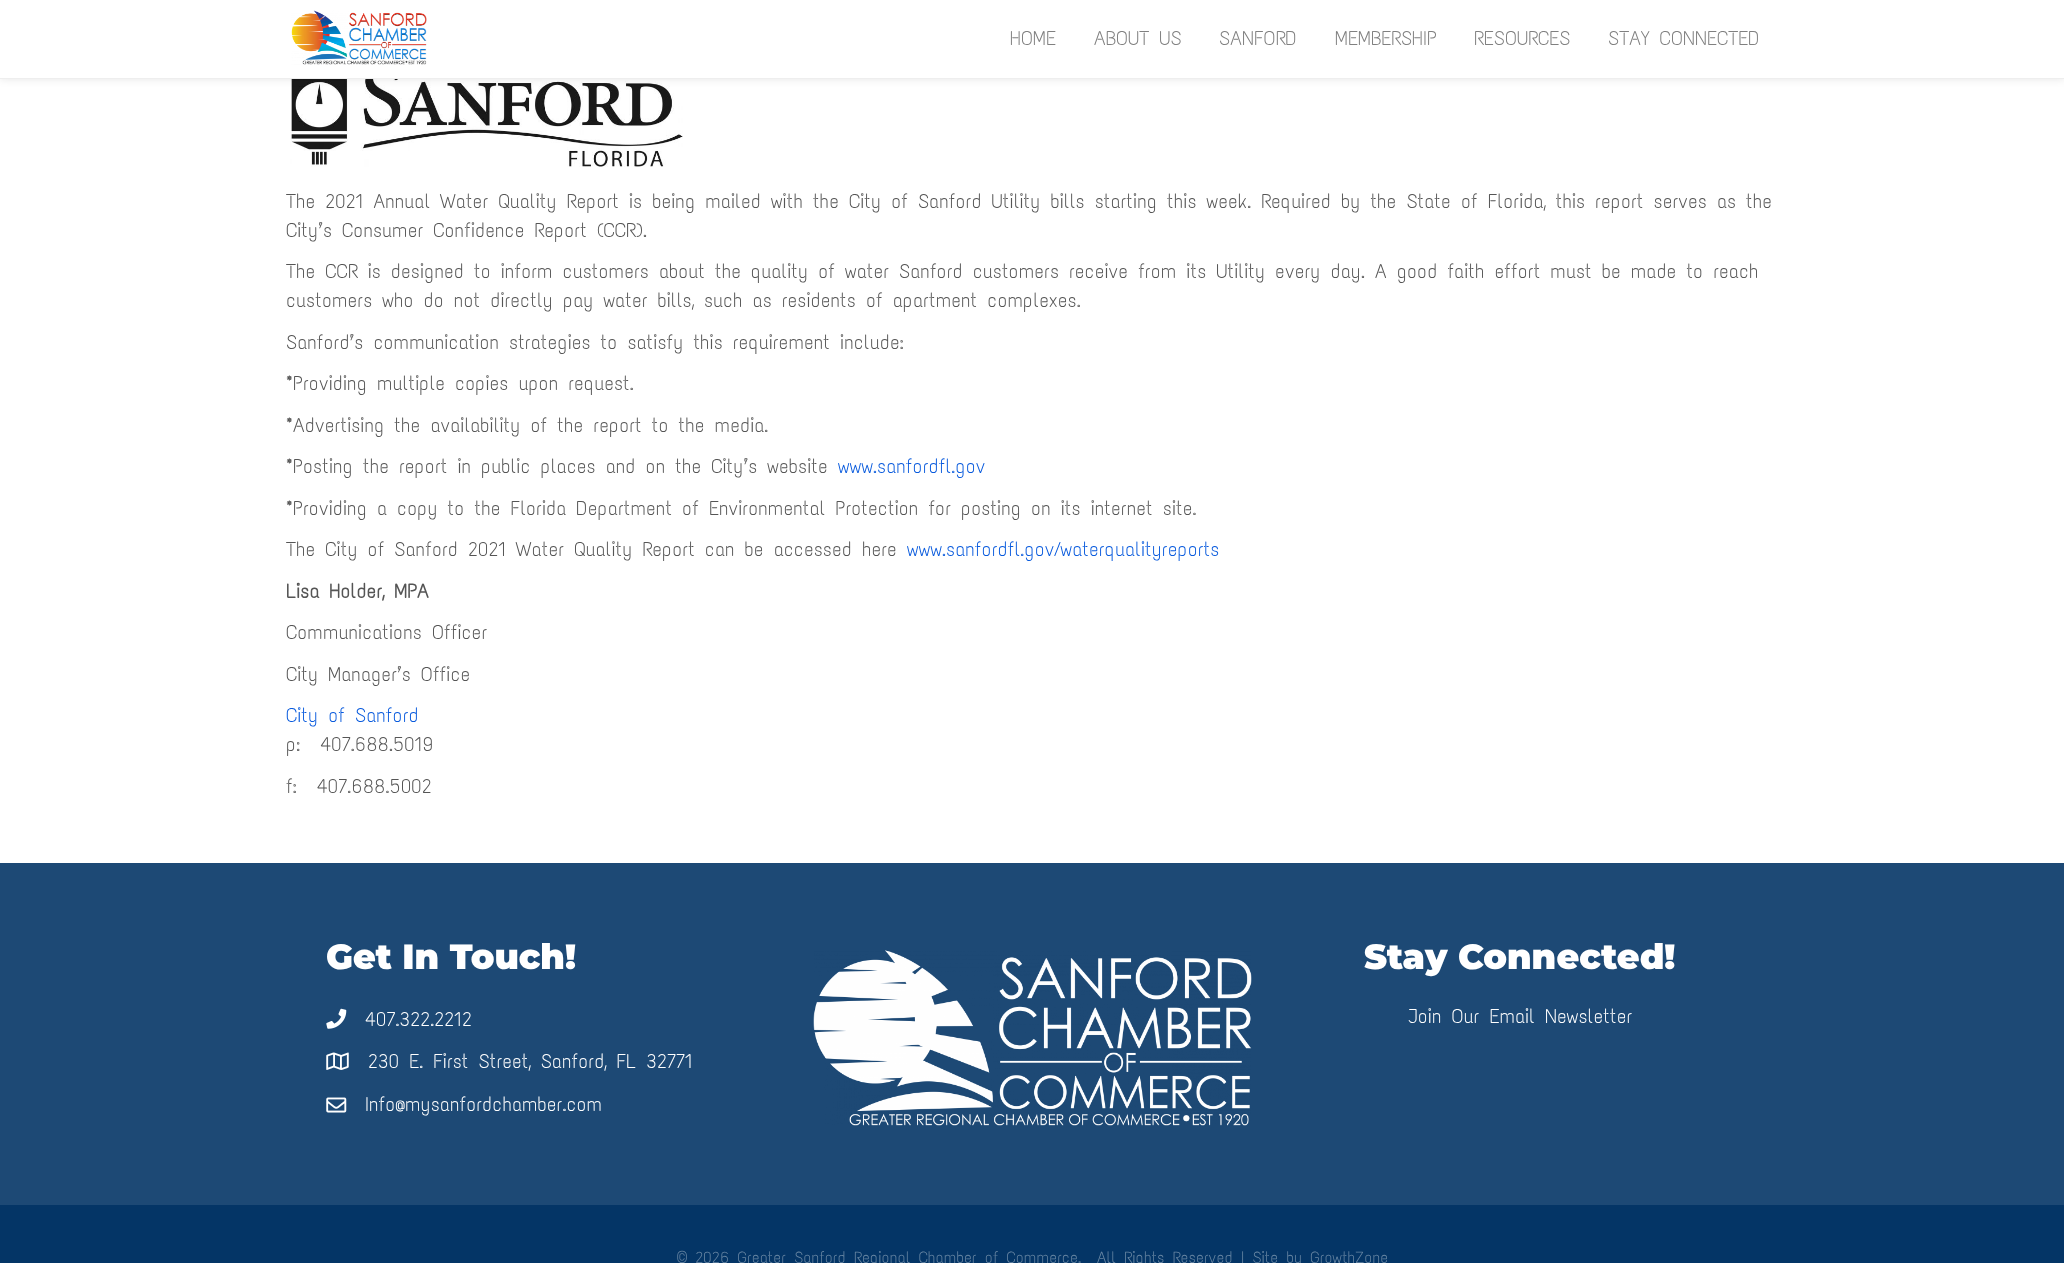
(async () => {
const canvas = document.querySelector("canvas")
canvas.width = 2064
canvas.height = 1263
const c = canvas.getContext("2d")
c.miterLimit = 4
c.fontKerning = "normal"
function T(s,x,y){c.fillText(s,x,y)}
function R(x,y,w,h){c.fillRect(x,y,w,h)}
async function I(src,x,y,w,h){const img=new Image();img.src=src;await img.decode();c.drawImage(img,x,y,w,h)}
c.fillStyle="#fff"
R(0,0,2064,1263)
await I("2.png",286,79,397,88)
c.fillStyle="#0000001a"
c.filter="blur(4.5px)"
c.beginPath()
c.rect(0,0,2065,79)
c.fill()
c.filter="none"
c.fillStyle="#fff"
R(0,0,2064,78)
c.fillStyle="#eee"
R(0,78,2064,1)
await I("1.png",291,10,136,55)
c.font="20px Text Me One"
c.fillStyle="#808080"
T("HOME",1010,45)
T("ABOUT US",1094,45)
T("SANFORD",1219,45)
T("MEMBERSHIP",1335,45)
T("RESOURCES",1474,45)
T("STAY CONNECTED",1608,45)
c.fillStyle="#555"
T("The 2021 Annual Water Quality Report is being mailed with the City of Sanford Utility bills starting this week. Required by the State of Florida, this report serves as the",286,208)
T("City’s Consumer Confidence Report (CCR).",286,237)
T("The CCR is designed to inform customers about the quality of water Sanford customers receive from its Utility every day. A good faith effort must be made to reach",286,278)
T("customers who do not directly pay water bills, such as residents of apartment complexes.",286,307)
T("Sanford’s communication strategies to satisfy this requirement include:",286,349)
T("*Providing multiple copies upon request.",286,390)
T("*Advertising the availability of the report to the media.",286,432)
T("*Posting the report in public places and on the City’s website",286,473)
c.fillStyle="#085add"
T("www.sanfordfl.gov",838,473)
c.fillStyle="#555"
T("*Providing a copy to the Florida Department of Environmental Protection for posting on its internet site.",286,515)
T("The City of Sanford 2021 Water Quality Report can be accessed here",286,556)
c.fillStyle="#085add"
T("www.sanfordfl.gov/waterqualityreports",907,556)
c.font="bold 20px Text Me One"
c.fillStyle="#555"
T("Lisa Holder, MPA",286,598)
c.font="20px Text Me One"
T("Communications Officer",286,639)
T("City Manager’s Office",286,681)
c.fillStyle="#085add"
T("City of Sanford",286,722)
c.fillStyle="#555"
T("p:  407.688.5019",286,751)
T("f:  407.688.5002",286,793)
c.fillStyle="#1d4975"
R(0,863,2064,342)
c.font="100 35px Montserrat"
c.fillStyle="#fff"
T("Get In Touch!",326,969)
await I("3.png",326,1008,21,21)
c.font="20px Text Me One"
T("407.322.2212",365,1026)
await I("4.png",326,1052,23,18)
T("230 E. First Street, Sanford, FL 32771",368,1068)
await I("5.png",326,1097,21,16)
T("Info@mysanfordchamber.com",365,1111)
await I("6.png",813,950,439,176)
c.font="100 35px Montserrat"
T("Stay Connected!",1364,969)
c.font="20px Text Me One"
T("Join Our Email Newsletter",1408,1023)
c.fillStyle="#043566"
R(0,1205,2064,58)
c.font="16.25px Text Me One"
c.fillStyle="#6886a3"
T("© 2026 Greater Sanford Regional Chamber of Commerce.",677,1263)
T("All Rights Reserved | Site by GrowthZone",1097,1263)
})()
